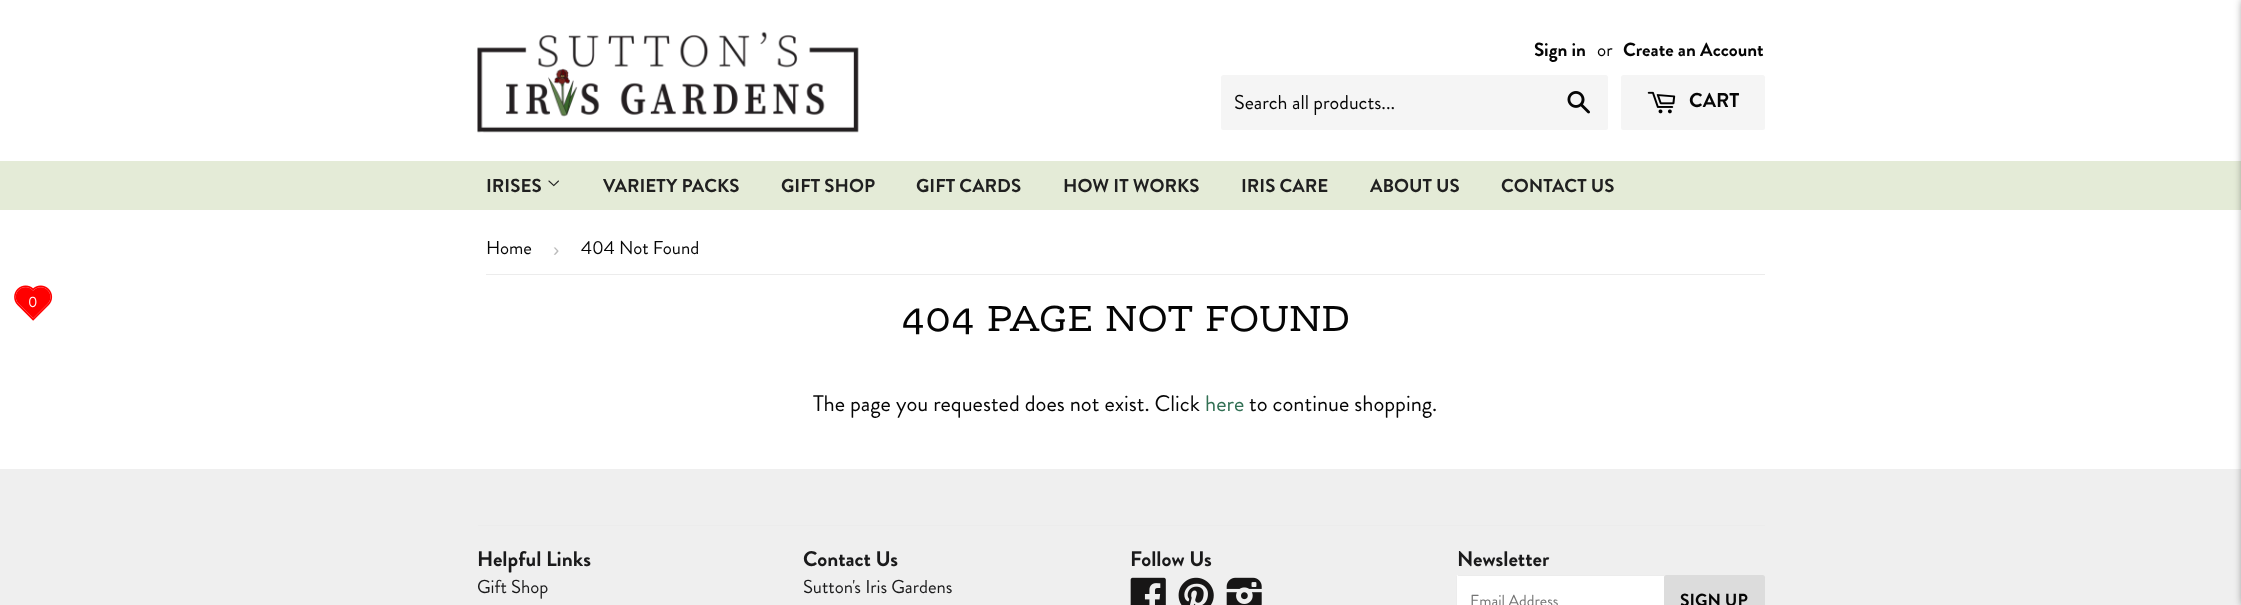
(async () => {
const canvas = document.querySelector("canvas")
canvas.width = 2241
canvas.height = 605
const c = canvas.getContext("2d")
c.miterLimit = 4
c.fontKerning = "normal"
function T(s,x,y){c.fillText(s,x,y)}
function R(x,y,w,h){c.fillRect(x,y,w,h)}
function Q(x,y,w,h,r){c.beginPath();c.roundRect(x,y,w,h,r);c.fill()}
async function I(src,x,y,w,h){const img=new Image();img.src=src;await img.decode();c.drawImage(img,x,y,w,h)}
let path
c.fillStyle="#fff"
R(0,0,2241,605)
await I("1.png",477,31,382,102)
c.font="bold 19px Brandon Grotesque"
c.fillStyle="#050505"
T("Sign in",1534,56)
c.font="19px Brandon Grotesque"
T("or",1597,56)
c.font="bold 19px Brandon Grotesque"
T("Create an Account",1623,56)
c.fillStyle="#f5f5f5"
Q(1221,75,387,55,2.5)
c.font="20px Brandon Grotesque"
c.fillStyle="#050505"
T("Search all products...",1234,109)
await I("2.png",1567,91,23,23)
c.fillStyle="#f5f5f5"
Q(1621,75,144,55,2.5)
await I("3.png",1647,91,29,23)
c.font="bold 20px Brandon Grotesque"
c.fillStyle="#050505"
T("CART",1689,107)
c.fillStyle="#e4ebd7"
R(0,161,2241,49)
c.font="bold 18.75px Brandon Grotesque"
c.fillStyle="#202020"
T("IRISES",486,192)
await I("4.png",548,180,11,7)
T("VARIETY PACKS",603,192)
T("GIFT SHOP",781,192)
T("GIFT CARDS",916,192)
T("HOW IT WORKS",1063,192)
T("IRIS CARE",1241,192)
T("ABOUT US",1370,192)
T("CONTACT US",1501,192)
await I("5.png",14,285,39,36)
c.font="15px Brandon Grotesque"
c.fillStyle="#fff"
T("0",28,307)
c.fillStyle="#efefef"
R(0,469,2241,136)
c.fillStyle="#00000080"
c.filter="blur(4.5px)"
c.beginPath()
c.rect(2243,0,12,605)
c.fill()
c.filter="none"
c.fillStyle="#ececec"
R(486,274,1279,1)
c.font="18.75px Brandon Grotesque"
c.fillStyle="#050505"
T("Home",486,254)
c.font="18.75px Liberation Sans"
c.fillStyle="#bbb"
T("›",553,256)
c.font="18.75px Brandon Grotesque"
c.fillStyle="#050505"
T("404 Not Found",581,254)
c.font="39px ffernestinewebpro"
T("404 PAGE NOT FOUND",901,331)
c.font="22.5px Brandon Grotesque"
T("The page you requested does not exist. Click",813,411)
c.fillStyle="#327054"
T("here",1205,411)
c.fillStyle="#050505"
T("to continue shopping.",1249,411)
c.fillStyle="#ececec"
R(478,525,1287,1)
c.font="bold 21.25px Brandon Grotesque"
c.fillStyle="#1a1a1b"
T("Helpful Links",477,566)
c.font="18.75px Brandon Grotesque"
T("Gift Shop",477,593)
c.font="bold 21.25px Brandon Grotesque"
T("Contact Us",803,566)
c.font="18.75px Brandon Grotesque"
T("Sutton's Iris Gardens",803,593)
c.font="bold 21.25px Brandon Grotesque"
T("Follow Us",1130,566)
await I("6.png",1130,577,36,28)
await I("7.png",1178,577,36,28)
await I("8.png",1226,577,36,28)
T("Newsletter",1457,566)
c.fillStyle="#fff"
path = new Path2D("M1458.5 575h205.5v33h-205.5c-1.5 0-2.5-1-2.5-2.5v-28c0-1.5 1-2.5 2.5-2.5z")
c.fill(path)
c.fillStyle="#ececec"
R(1458,575,206,1)
R(1456,576,1,29)
c.font="16px Brandon Grotesque"
c.fillStyle="#757575"
T("Email Address",1470,606)
c.fillStyle="#dcdcdc"
Q(1664,575,101,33,2.5)
c.font="bold 17.5px Brandon Grotesque"
c.fillStyle="#050505"
T("SIGN UP",1680,606)
})()
